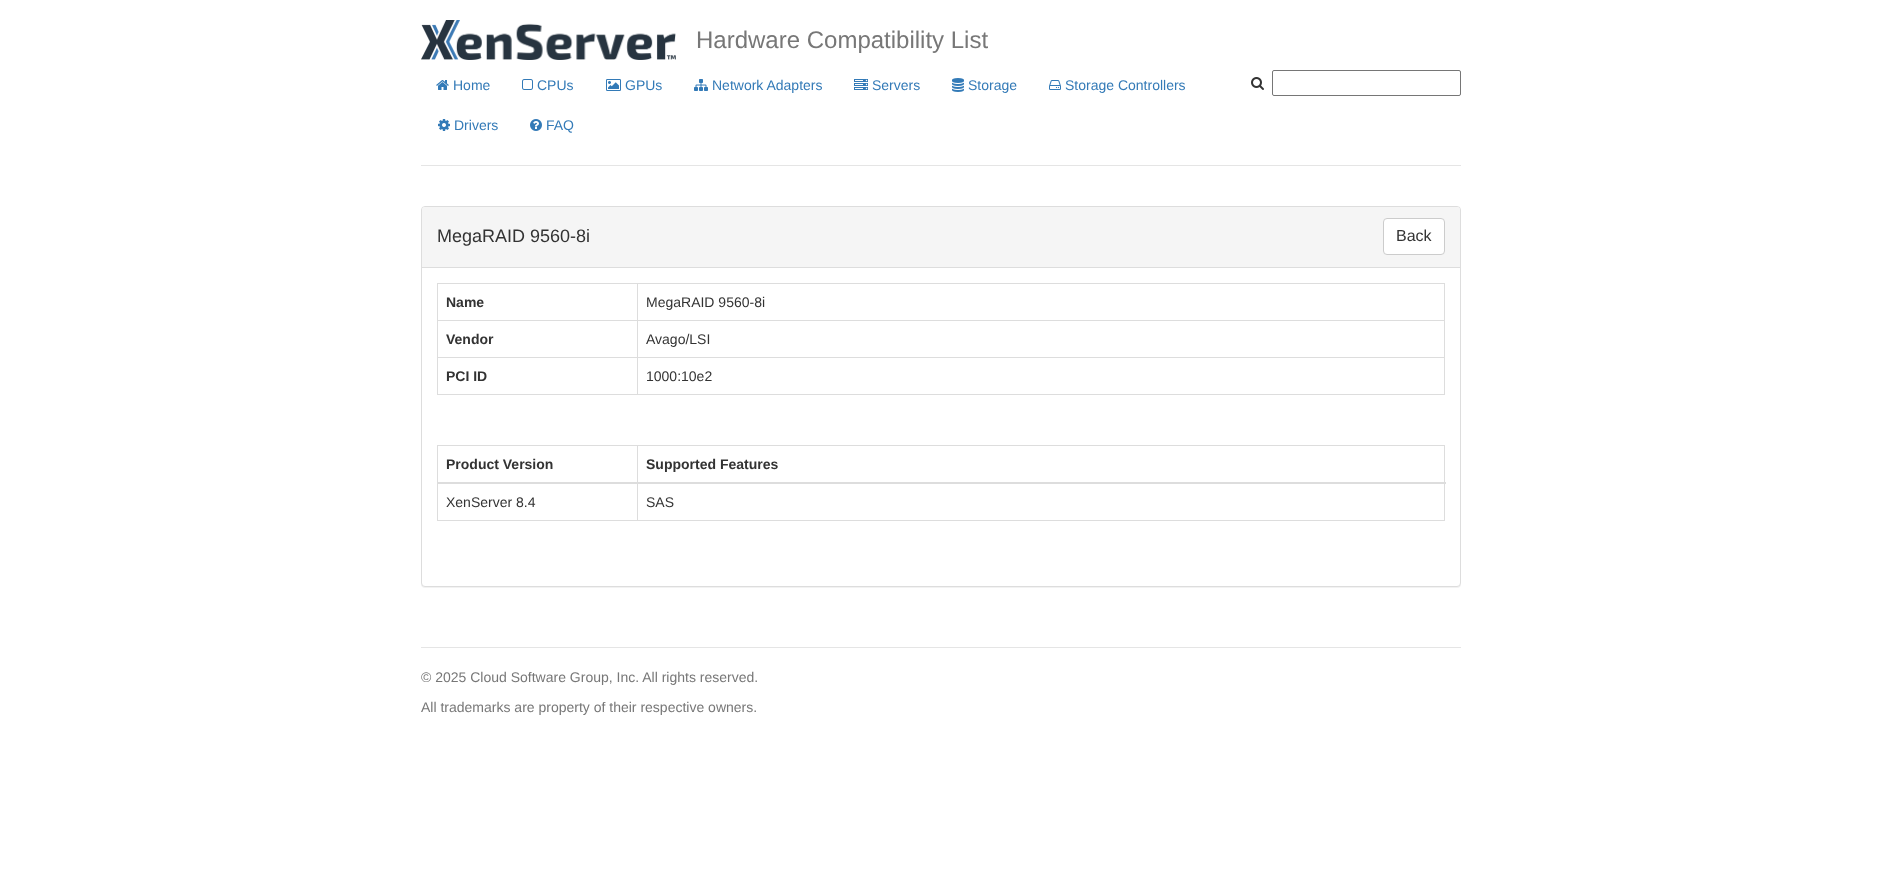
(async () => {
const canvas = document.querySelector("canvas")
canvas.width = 1882
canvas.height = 878
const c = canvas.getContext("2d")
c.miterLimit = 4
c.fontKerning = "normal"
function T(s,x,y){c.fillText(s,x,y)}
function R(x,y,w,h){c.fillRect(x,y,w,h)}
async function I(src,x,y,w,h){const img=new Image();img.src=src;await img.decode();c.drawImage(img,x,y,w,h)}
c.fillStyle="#fff"
R(0,0,1882,878)
c.fillStyle="#e5e5e5"
R(421,165,1040,1)
await I("1.png",421,20,255,40)
c.font="24px Liberation Sans"
c.fillStyle="#777"
T("Hardware Compatibility List",696,48)
await I("2.png",436,80,13,10)
c.font="14px Liberation Sans"
c.fillStyle="#337ab7"
T("Home",453,90)
await I("3.png",522,79,11,11)
T("CPUs",537,90)
await I("4.png",606,79,15,12)
T("GPUs",625,90)
await I("5.png",694,79,14,12)
T("Network Adapters",712,90)
await I("6.png",854,79,14,11)
T("Servers",872,90)
await I("7.png",952,78,12,14)
T("Storage",968,90)
await I("8.png",1049,80,12,10)
T("Storage Controllers",1065,90)
await I("9.png",438,119,12,12)
T("Drivers",454,130)
await I("10.png",530,119,12,12)
T("FAQ",546,130)
await I("11.png",1251,77,13,13)
c.beginPath()
c.roundRect(1272.5,70.5,188,25,1.5)
c.strokeStyle="#767676"
c.stroke()
c.fillStyle="#0000000d"
c.filter="blur(0.5px)"
c.beginPath()
c.roundRect(421,207,1040,381,4)
c.fill()
c.filter="none"
c.fillStyle="#fff"
c.beginPath()
c.roundRect(421.5,206.5,1039,380,3.5)
c.fill()
c.strokeStyle="#ddd"
c.stroke()
c.fillStyle="#f5f5f5"
c.beginPath()
c.roundRect(422,207,1038,61,[3,3,0,0])
c.fill()
c.fillStyle="#ddd"
R(422,267,1038,1)
c.font="18px Liberation Sans"
c.fillStyle="#333"
T("MegaRAID 9560-8i",437,242)
c.fillStyle="#fff"
c.beginPath()
c.roundRect(1383.5,218.5,61,36,3.5)
c.fill()
c.strokeStyle="#ccc"
c.stroke()
c.font="16px Liberation Sans"
c.fillStyle="#333"
T("Back",1396,241)
c.fillStyle="#ddd"
R(437,283,1008,1)
R(1444,283,1,112)
R(437,394,1008,1)
R(437,283,1,112)
c.font="bold 14px Liberation Sans"
c.fillStyle="#333"
T("Name",446,307)
c.fillStyle="#ddd"
R(637,320,808,1)
R(637,357,808,1)
R(637,357,1,38)
R(437,357,201,1)
R(637,320,1,38)
R(437,320,201,1)
R(637,283,1,38)
c.font="14px Liberation Sans"
c.fillStyle="#333"
T("MegaRAID 9560-8i",646,307)
c.font="bold 14px Liberation Sans"
T("Vendor",446,344)
c.font="14px Liberation Sans"
T("Avago/LSI",646,344)
c.font="bold 14px Liberation Sans"
T("PCI ID",446,381)
c.font="14px Liberation Sans"
T("1000:10e2",646,381)
c.fillStyle="#ddd"
R(437,445,1008,1)
R(1444,445,1,76)
R(437,520,1008,1)
R(437,445,1,76)
c.font="bold 14px Liberation Sans"
c.fillStyle="#333"
T("Product Version",446,469)
c.fillStyle="#ddd"
R(637,445,1,76)
R(437,482,1009,2)
c.fillStyle="#333"
T("Supported Features",646,469)
c.font="14px Liberation Sans"
T("XenServer 8.4",446,507)
T("SAS",646,507)
c.fillStyle="#e5e5e5"
R(421,647,1040,1)
c.fillStyle="#777"
T("© 2025 Cloud Software Group, Inc. All rights reserved.",421,682)
T("All trademarks are property of their respective owners.",421,712)
})()
